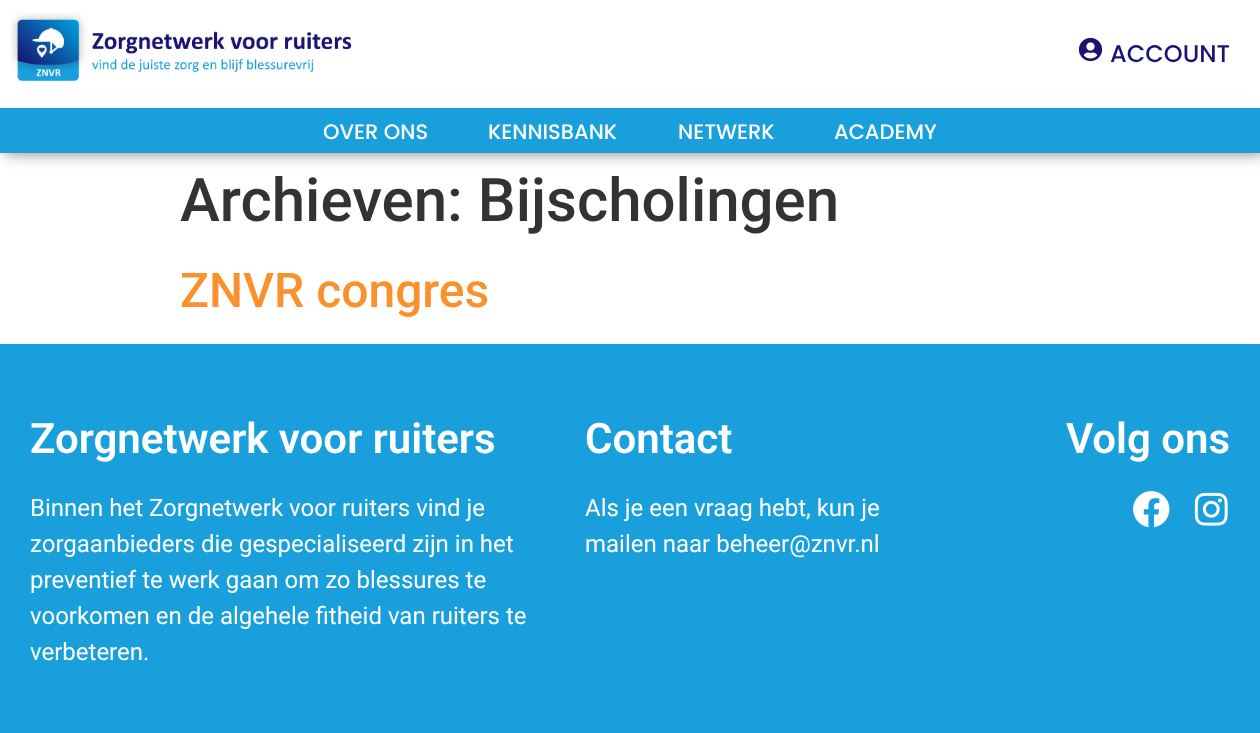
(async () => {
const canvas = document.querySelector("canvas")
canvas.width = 1260
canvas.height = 733
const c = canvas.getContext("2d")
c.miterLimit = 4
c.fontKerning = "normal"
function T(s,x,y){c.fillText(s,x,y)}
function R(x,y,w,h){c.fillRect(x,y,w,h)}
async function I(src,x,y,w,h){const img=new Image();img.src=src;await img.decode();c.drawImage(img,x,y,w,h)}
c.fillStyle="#fff"
R(0,0,1260,733)
c.fillStyle="#00000080"
c.filter="blur(7.5px)"
c.beginPath()
c.rect(5,108,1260,45)
c.fill()
c.filter="none"
c.fillStyle="#fff"
R(0,93,1260,15)
await I("1.png",10,12,342,70)
await I("2.png",1079,38,24,24)
c.font="500 24px Poppins"
c.fillStyle="#191473"
T("ACCOUNT",1110,62)
c.fillStyle="#19a0dc"
R(0,108,1260,45)
c.font="500 21px Poppins"
c.fillStyle="#fff"
T("OVER ONS",323,139)
T("KENNISBANK",488,139)
T("NETWERK",678,139)
T("ACADEMY",834,139)
c.font="500 60px Roboto"
c.fillStyle="#333"
T("Archieven: Bijscholingen",180,221)
c.font="500 48px Roboto"
c.fillStyle="#fa912d"
T("ZNVR congres",180,307)
c.fillStyle="#19a0dc"
R(0,344,1260,389)
c.font="600 42px Roboto"
c.fillStyle="#fff"
T("Zorgnetwerk voor ruiters",30,453)
c.font="24px Roboto"
T("Binnen het Zorgnetwerk voor ruiters vind je",30,516)
T("zorgaanbieders die gespecialiseerd zijn in het",30,552)
T("preventief te werk gaan om zo blessures te",30,588)
T("voorkomen en de algehele fitheid van ruiters te",30,624)
T("verbeteren.",30,660)
c.font="600 42px Roboto"
T("Contact",585,453)
c.font="24px Roboto"
T("Als je een vraag hebt, kun je",585,516)
T("mailen naar beheer@znvr.nl",585,552)
c.font="600 42px Roboto"
T("Volg ons",1066,453)
await I("3.png",1133,491,37,37)
await I("4.png",1194,492,34,34)
})()
